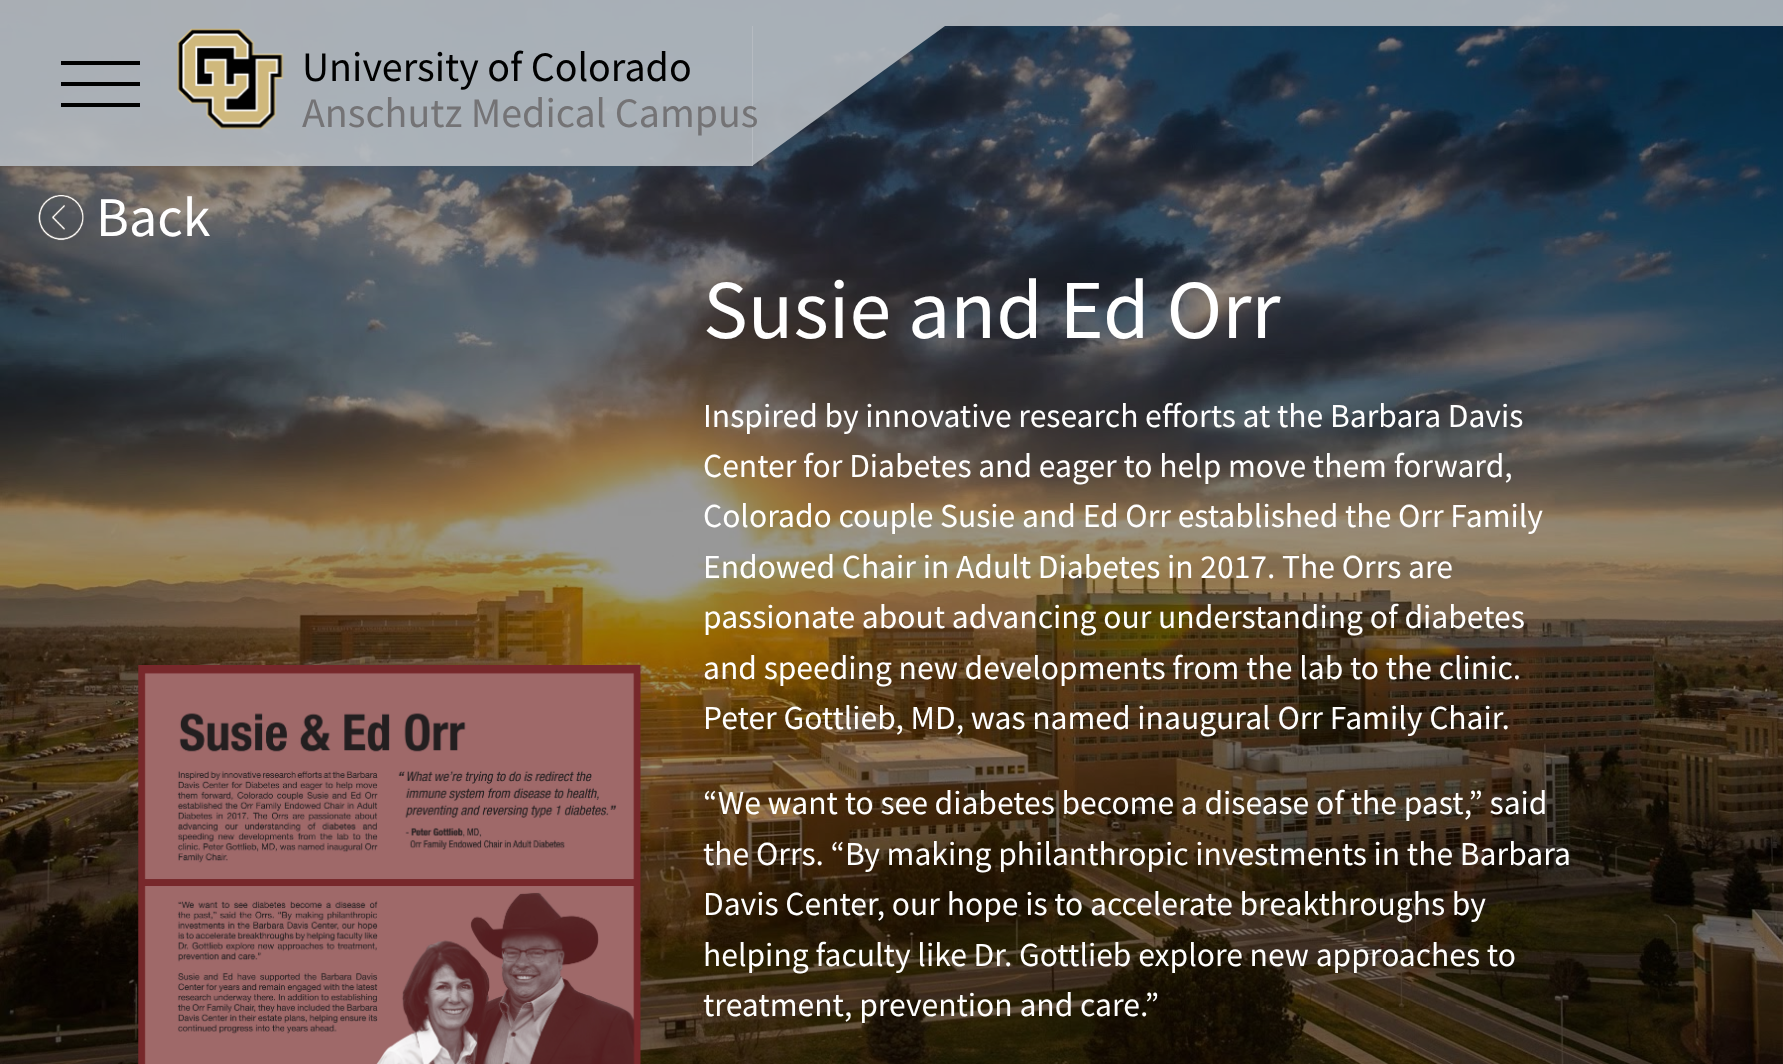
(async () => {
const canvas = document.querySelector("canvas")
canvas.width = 1783
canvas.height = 1064
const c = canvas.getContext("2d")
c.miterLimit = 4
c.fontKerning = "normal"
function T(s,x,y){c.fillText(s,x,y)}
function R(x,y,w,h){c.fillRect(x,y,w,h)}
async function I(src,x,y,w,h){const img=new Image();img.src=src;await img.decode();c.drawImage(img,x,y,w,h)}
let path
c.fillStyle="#fff"
R(0,0,1783,1064)
await I("1.png",1782,0,1,1064)
await I("2.png",0,0,1783,1064)
c.fillStyle="#b7bdc2e6"
R(0,0,1783,26)
path = new Path2D("M752 26h193l-193 140z")
c.fill(path)
R(0,26,753,140)
c.fillStyle="#000"
R(61,61,79,4)
R(61,82,79,4)
R(61,103,79,4)
await I("3.png",177,28,107,102)
c.font="42px Source Sans Pro"
T("University of Colorado",302,81)
c.fillStyle="#747375"
T("Anschutz Medical Campus",302,127)
await I("4.png",38,194,46,47)
c.font="56px Source Sans Pro"
c.fillStyle="#fff"
T("Back",96,236)
await I("5.png",138,665,503,399)
c.font="84px Source Sans Pro"
T("Susie and Ed Orr",703,338)
c.font="33.6px Source Sans Pro"
T("Inspired by innovative research efforts at the Barbara Davis",703,427)
T("Center for Diabetes and eager to help move them forward,",703,477)
T("Colorado couple Susie and Ed Orr established the Orr Family",703,527)
T("Endowed Chair in Adult Diabetes in 2017. The Orrs are",703,578)
T("passionate about advancing our understanding of diabetes",703,628)
T("and speeding new developments from the lab to the clinic.",703,679)
T("Peter Gottlieb, MD, was named inaugural Orr Family Chair.",703,729)
T("“We want to see diabetes become a disease of the past,” said",703,814)
T("the Orrs. “By making philanthropic investments in the Barbara",703,865)
T("Davis Center, our hope is to accelerate breakthroughs by",703,915)
T("helping faculty like Dr. Gottlieb explore new approaches to",703,966)
T("treatment, prevention and care.”",703,1016)
})()
